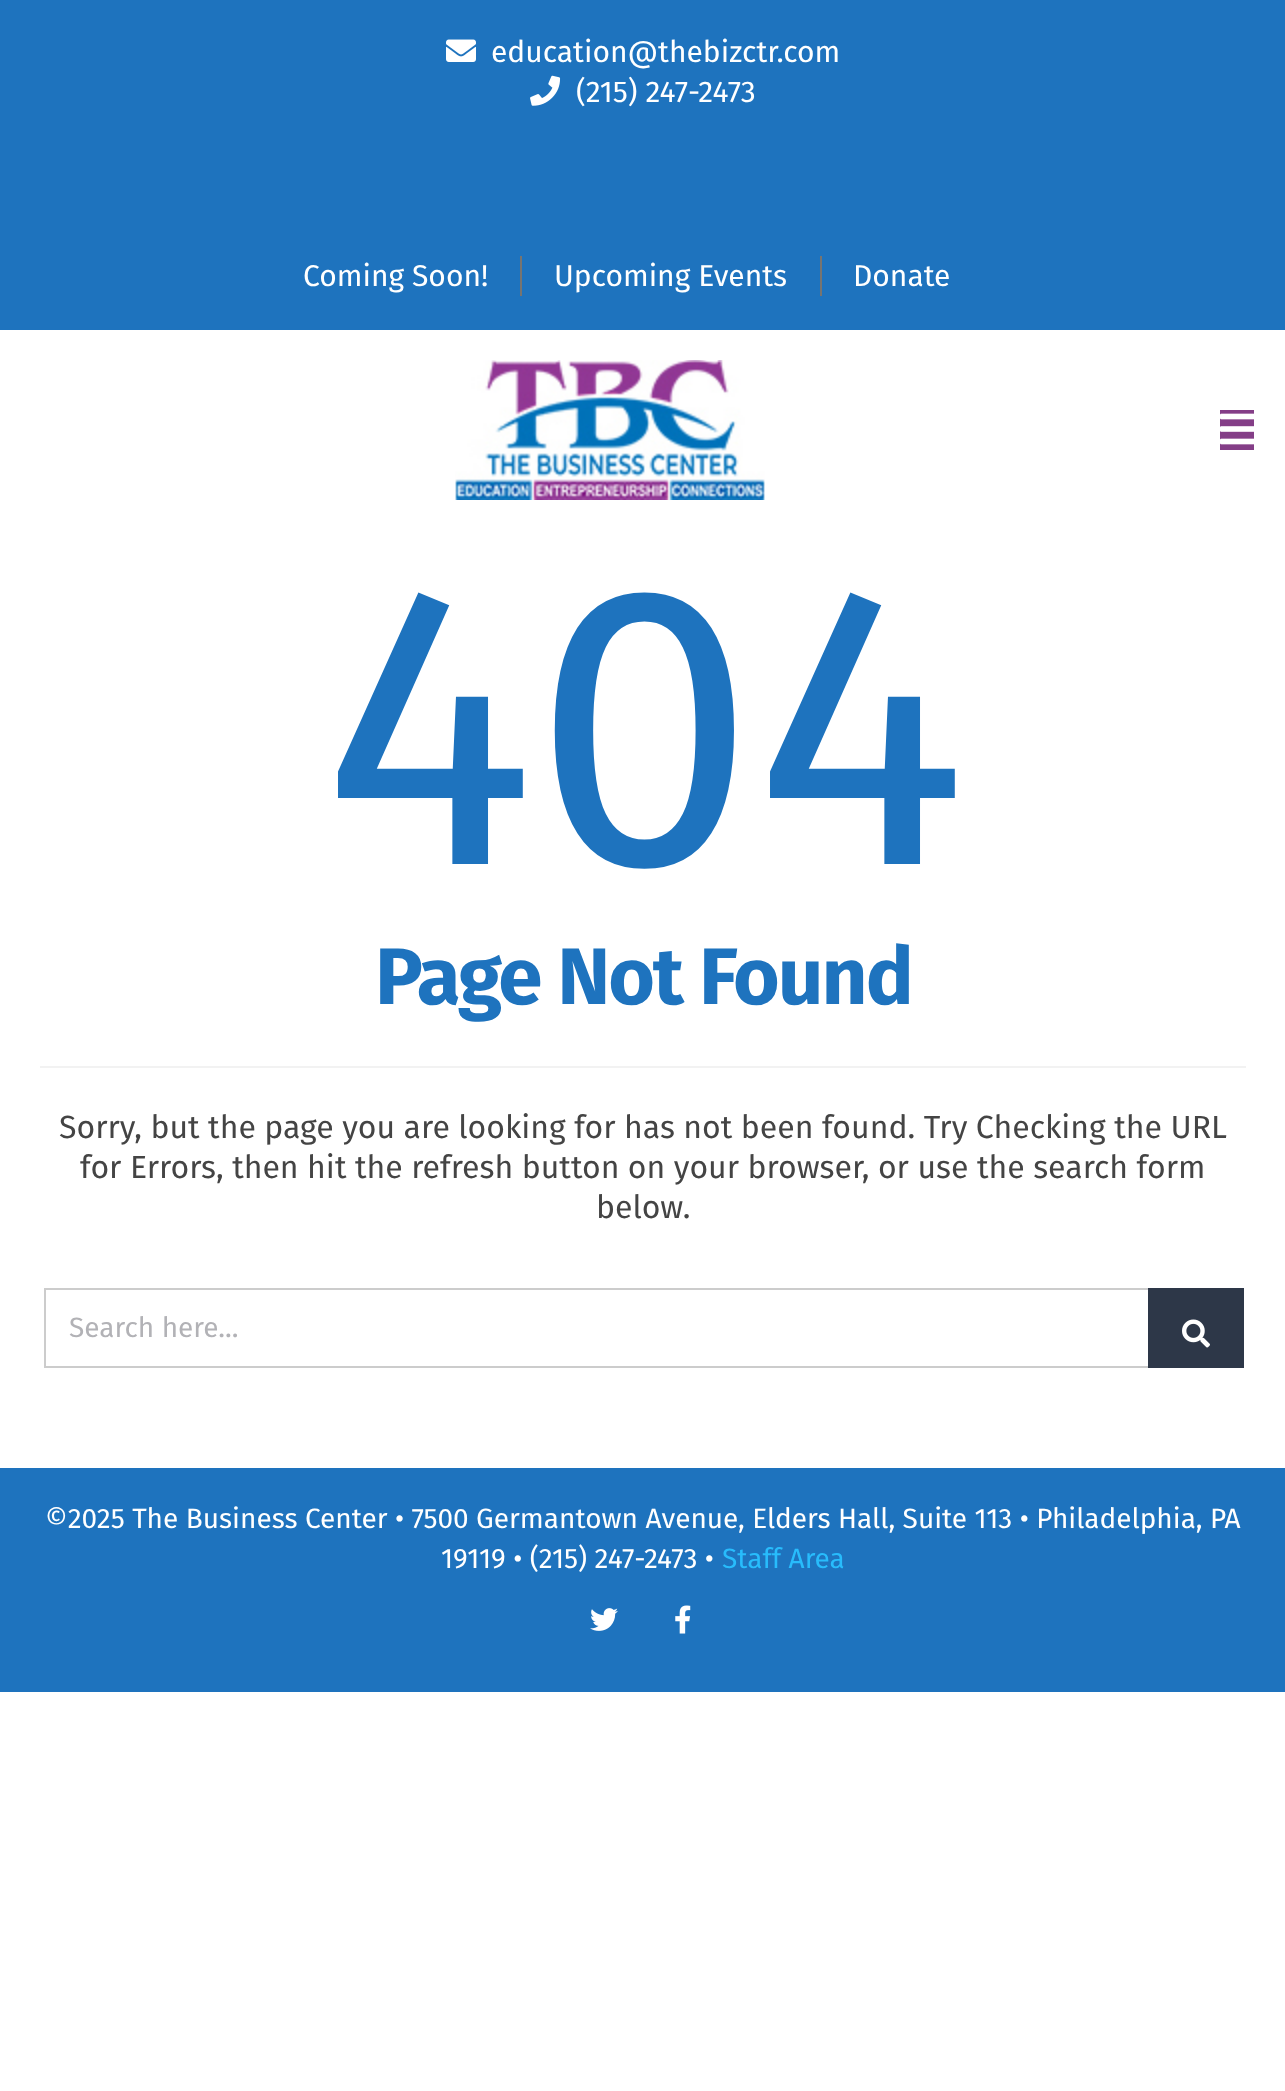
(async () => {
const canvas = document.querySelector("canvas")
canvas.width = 1285
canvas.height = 2091
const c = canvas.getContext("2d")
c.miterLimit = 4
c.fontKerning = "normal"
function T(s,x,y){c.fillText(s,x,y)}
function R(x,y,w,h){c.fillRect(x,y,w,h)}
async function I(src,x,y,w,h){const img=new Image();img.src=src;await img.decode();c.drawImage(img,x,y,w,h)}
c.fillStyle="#fff"
R(0,0,1285,2091)
c.fillStyle="#1e73be"
R(0,0,1285,330)
await I("1.png",446,39,30,23)
c.font="30px Fira Sans"
c.fillStyle="#fff"
T("education@thebizctr.com",491,62)
await I("2.png",530,75,31,31)
T("(215) 247-2473",576,102)
c.fillStyle="#777470"
R(520,256,2,40)
c.fillStyle="#fff"
T("Coming Soon!",303,286)
c.fillStyle="#777470"
R(820,256,2,40)
c.fillStyle="#fff"
T("Upcoming Events",554,286)
T("Donate",853,286)
await I("3.png",455,360,310,140)
c.fillStyle="#843e87"
R(1220,410,34,40)
await I("4.png",1220,413,34,32)
c.fillStyle="#f2f2f2"
R(40,1066,1206,2)
c.letterSpacing="-2px"
c.font="400px Fira Sans"
c.fillStyle="#1e73be"
T("404",322,864)
c.font="bold 80px Fira Sans"
T("Page Not Found",375,1004)
c.letterSpacing="0px"
c.font="32px Fira Sans"
c.fillStyle="#444"
T("Sorry, but the page you are looking for has not been found. Try Checking the URL",59,1138)
T("for Errors, then hit the refresh button on your browser, or use the search form",80,1178)
T("below.",596,1218)
c.strokeStyle="#ccc"
c.lineWidth=2
c.strokeRect(45,1289,1198,78)
c.font="28px Fira Sans"
c.fillStyle="#b2b2b6"
T("Search here...",69,1337)
c.fillStyle="#2d3748"
R(1148,1288,96,80)
await I("5.png",1182,1319,28,29)
c.fillStyle="#1e73be"
R(0,1468,1285,224)
c.fillStyle="#fff"
T("©2025 The Business Center • 7500 Germantown Avenue, Elders Hall, Suite 113 • Philadelphia, PA",45,1528)
T("19119 • (215) 247-2473 •",441,1568)
c.fillStyle="#28bcfc"
T("Staff Area",722,1568)
await I("6.png",590,1608,28,23)
await I("7.png",675,1605,16,29)
})()
